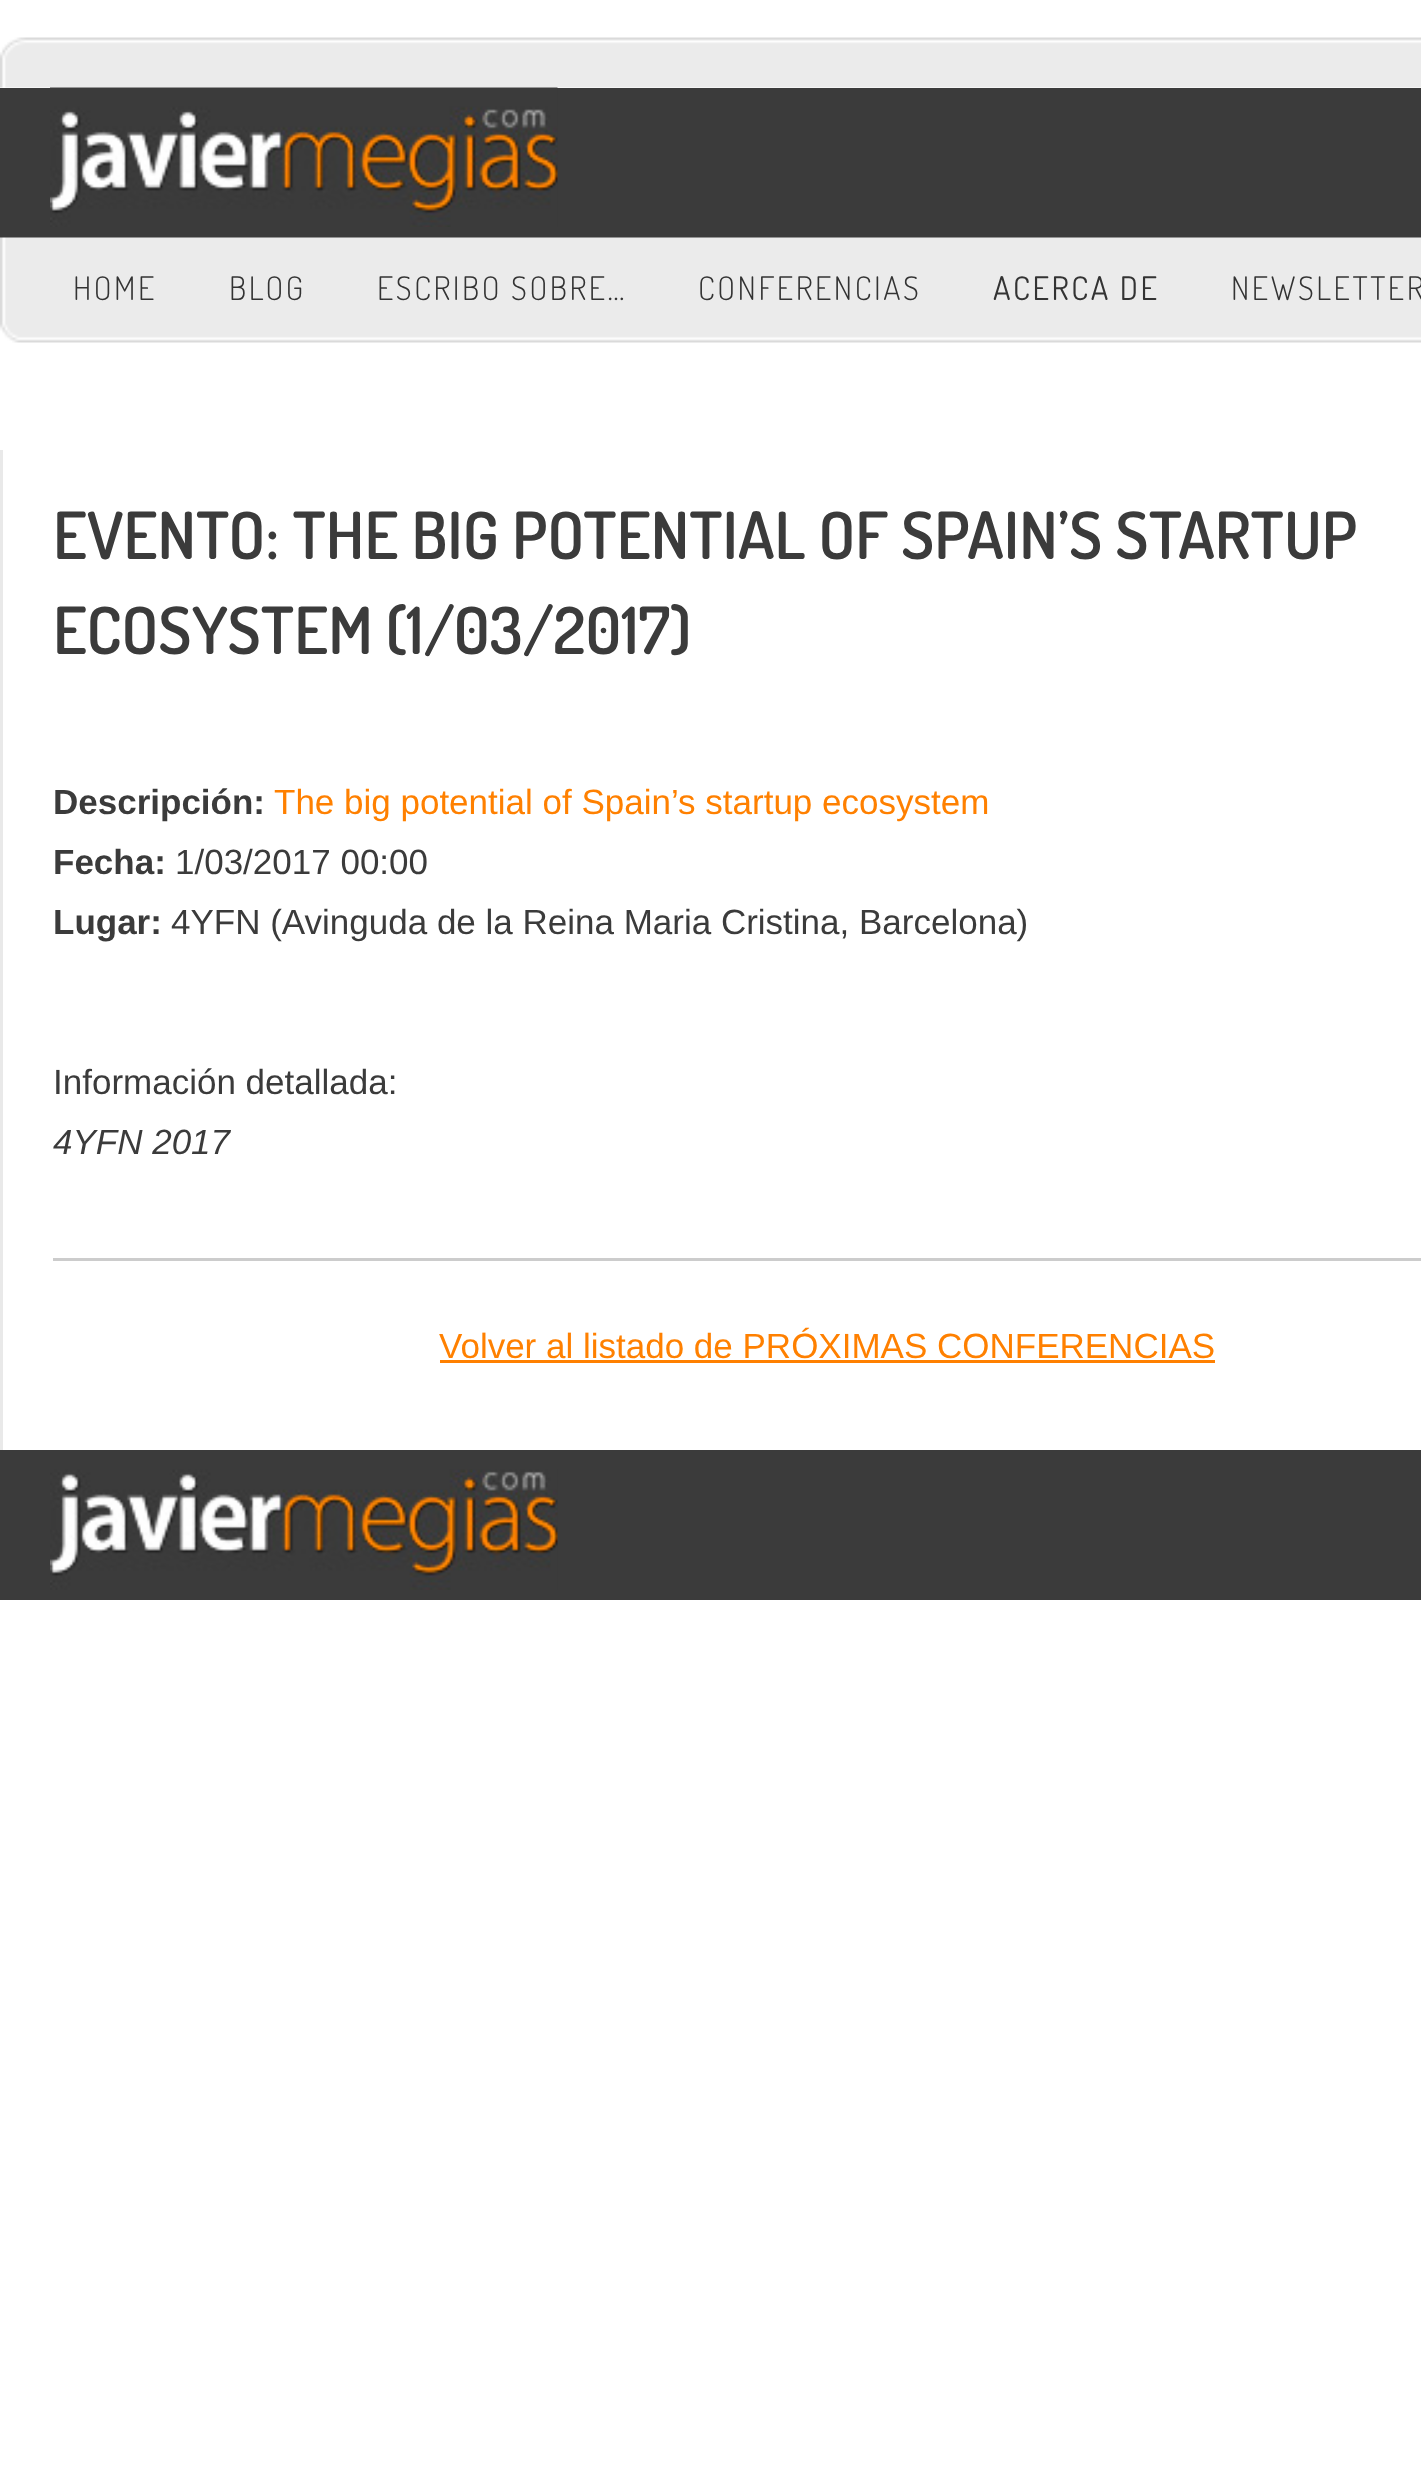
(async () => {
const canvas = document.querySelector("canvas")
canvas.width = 1421
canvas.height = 2490
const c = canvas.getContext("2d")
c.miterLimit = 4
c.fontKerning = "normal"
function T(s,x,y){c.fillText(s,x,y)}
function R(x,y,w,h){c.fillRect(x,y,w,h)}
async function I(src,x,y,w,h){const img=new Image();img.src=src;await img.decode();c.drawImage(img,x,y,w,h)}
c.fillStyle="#fff"
R(0,0,1421,2490)
await I("1.png",0,37,1421,51)
c.fillStyle="#3b3b3b"
R(0,88,1421,150)
await I("2.png",50,87,508,140)
await I("3.png",0,237,1421,106)
c.letterSpacing="2.5px"
c.font="300 32.5px Dosis"
c.fillStyle="#333"
T("HOME",73,300)
T("BLOG",229,300)
T("ESCRIBO SOBRE…",377,300)
T("CONFERENCIAS",698,300)
c.font="32.5px Dosis"
T("ACERCA DE",993,300)
c.font="300 32.5px Dosis"
T("NEWSLETTER",1231,300)
c.fillStyle="#e9e9e9"
R(0,450,3,1000)
c.letterSpacing="0px"
c.font="600 65px Dosis"
c.fillStyle="#3b3b3b"
T("EVENTO: THE BIG POTENTIAL OF SPAIN’S STARTUP",53,559)
T("ECOSYSTEM (1/03/2017)",53,654)
c.font="bold 35px Liberation Sans"
T("Descripción:",53,814)
c.font="35px Liberation Sans"
c.fillStyle="#ff8000"
T("The big potential of Spain’s startup ecosystem",274,814)
c.font="bold 35px Liberation Sans"
c.fillStyle="#3b3b3b"
T("Fecha:",53,874)
c.font="35px Liberation Sans"
T("1/03/2017 00:00",175,874)
c.font="bold 35px Liberation Sans"
T("Lugar:",53,934)
c.font="35px Liberation Sans"
T("4YFN (Avinguda de la Reina Maria Cristina, Barcelona)",171,934)
T("Información detallada:",53,1094)
c.font="italic 35px Liberation Sans"
T("4YFN 2017",53,1154)
c.fillStyle="#ccc"
R(53,1258,1368,3)
c.font="35px Liberation Sans"
c.fillStyle="#ff8000"
T("Volver al listado de PRÓXIMAS CONFERENCIAS",439,1358)
R(440,1360,775,3)
c.fillStyle="#3b3b3b"
R(0,1450,1421,150)
await I("4.png",50,1469,508,121)
})()
